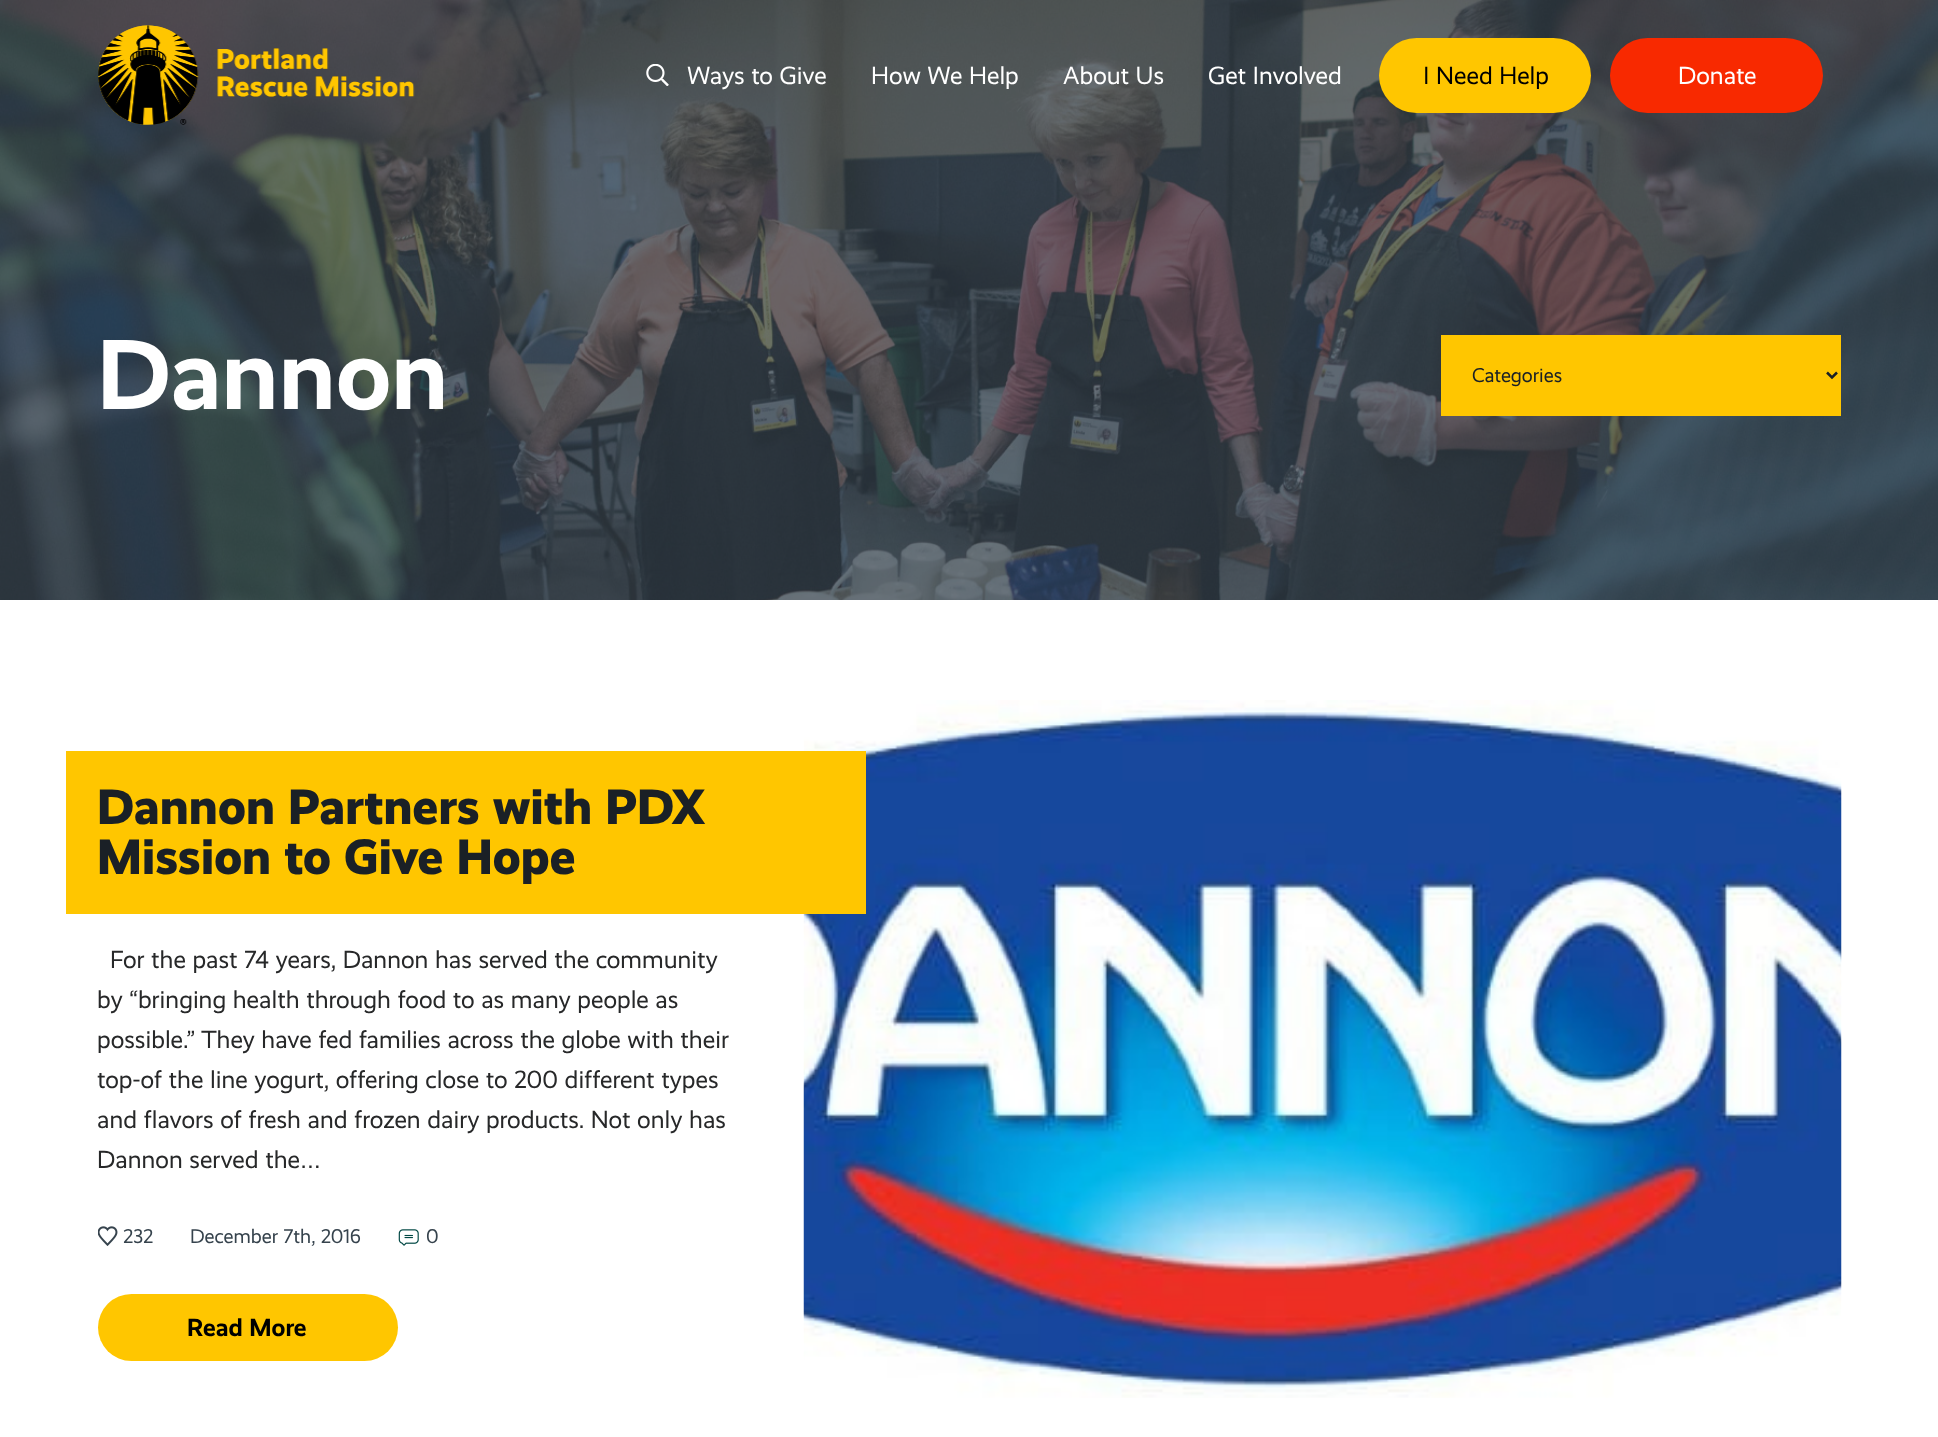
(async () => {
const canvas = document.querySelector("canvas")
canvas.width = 1938
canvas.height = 1437
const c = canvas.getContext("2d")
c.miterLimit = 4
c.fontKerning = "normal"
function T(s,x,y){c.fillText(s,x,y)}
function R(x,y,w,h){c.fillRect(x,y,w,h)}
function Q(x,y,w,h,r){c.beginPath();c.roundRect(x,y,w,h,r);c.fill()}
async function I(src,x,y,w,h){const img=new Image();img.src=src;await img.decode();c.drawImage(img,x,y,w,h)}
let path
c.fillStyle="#fff"
R(0,0,1938,1437)
await I("3.png",0,0,1938,600)
await I("1.png",98,25,317,100)
await I("2.png",646,64,23,22)
c.font="25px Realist"
T("Ways to Give",687,84)
T("How We Help",871,84)
T("About Us",1063,84)
T("Get Involved",1208,84)
c.fillStyle="#ffc600"
Q(1379,38,212,75,37.5)
c.fillStyle="#000"
T("I Need Help",1423,84)
c.fillStyle="#f82900"
Q(1610,38,213,75,37.5)
c.fillStyle="#fff"
T("Donate",1678,84)
c.font="bold 100px Realist"
T("Dannon",97,409)
c.fillStyle="#ffc600"
R(1441,335,400,81)
path = new Path2D("M1827 372.5l5 5l5-5")
c.strokeStyle="#1a2026"
c.lineWidth=2.5
c.stroke(path)
c.font="20px Realist"
c.fillStyle="#1a2026"
T("Categories",1472,382)
await I("6.png",803,700,1039,698)
c.fillStyle="#ffc600"
R(66,751,800,163)
c.font="800 50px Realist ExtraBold"
c.fillStyle="#1a2026"
T("Dannon Partners with PDX",97,824)
T("Mission to Give Hope",97,874)
c.font="25px Realist"
c.fillStyle="#272829"
T("For the past 74 years, Dannon has served the community",110,968)
T("by “bringing health through food to as many people as",97,1008)
T("possible.” They have fed families across the globe with their",97,1048)
T("top-of the line yogurt, offering close to 200 different types",97,1088)
T("and flavors of fresh and frozen dairy products. Not only has",97,1128)
T("Dannon served the…",97,1168)
await I("4.png",98,1226,20,20)
c.font="20px Realist"
c.fillStyle="#36434d"
T("232",123,1243)
T("December 7th, 2016",190,1243)
await I("5.png",398,1229,21,17)
T("0",426,1243)
c.fillStyle="#ffc600"
Q(98,1294,300,67,33.5)
c.font="bold 25px Realist"
c.fillStyle="#000"
T("Read More",187,1336)
})()
